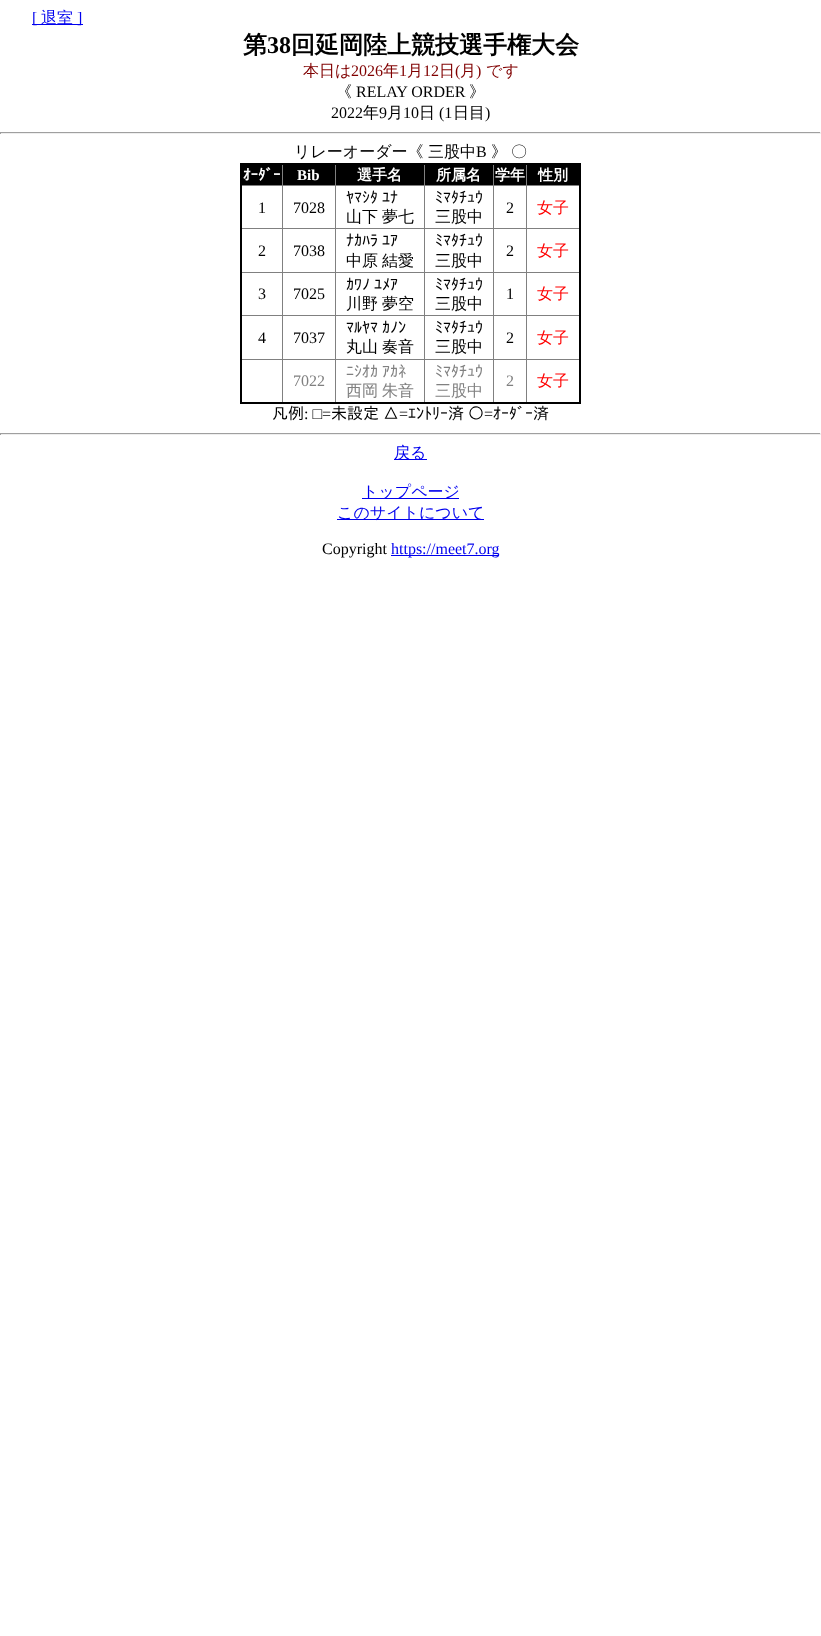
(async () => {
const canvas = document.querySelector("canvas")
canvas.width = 821
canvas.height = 1636
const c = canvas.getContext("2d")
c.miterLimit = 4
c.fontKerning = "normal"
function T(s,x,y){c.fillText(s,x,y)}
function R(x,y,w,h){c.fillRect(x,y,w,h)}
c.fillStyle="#fff"
R(0,0,821,1636)
c.fillStyle="#00e"
R(32,24,51,1)
c.font="16px Liberation Serif"
T("[",32,23)
c.font="500 16px WenQuanYi Zen Hei"
T("退室",41,23)
c.font="16px Liberation Serif"
T("]",77,23)
c.font="bold 24px WenQuanYi Zen Hei"
c.fillStyle="#000"
T("第",243,53)
c.font="bold 24px Liberation Serif"
T("38",267,53)
c.font="bold 24px WenQuanYi Zen Hei"
T("回延岡陸上競技選手権大会",291,53)
c.font="500 16px WenQuanYi Zen Hei"
c.fillStyle="#800000"
T("本日は",303,76)
c.font="16px Liberation Serif"
T("2026",351,76)
c.font="500 16px WenQuanYi Zen Hei"
T("年",383,76)
c.font="16px Liberation Serif"
T("1",399,76)
c.font="500 16px WenQuanYi Zen Hei"
T("月",407,76)
c.font="16px Liberation Serif"
T("12",423,76)
c.font="500 16px WenQuanYi Zen Hei"
T("日",439,76)
c.font="16px Liberation Serif"
T("(",455,76)
c.font="500 16px WenQuanYi Zen Hei"
T("月",460,76)
c.font="16px Liberation Serif"
T(")",476,76)
c.font="500 16px WenQuanYi Zen Hei"
T("です",486,76)
c.fillStyle="#000"
T("《",336,97)
c.font="16px Liberation Serif"
T("RELAY ORDER",356,97)
c.font="500 16px WenQuanYi Zen Hei"
T("》",469,97)
c.font="16px Liberation Serif"
T("2022",331,118)
c.font="500 16px WenQuanYi Zen Hei"
T("年",363,118)
c.font="16px Liberation Serif"
T("9",379,118)
c.font="500 16px WenQuanYi Zen Hei"
T("月",387,118)
c.font="16px Liberation Serif"
T("10",403,118)
c.font="500 16px WenQuanYi Zen Hei"
T("日",419,118)
c.font="16px Liberation Serif"
T("(1",439,118)
c.font="500 16px WenQuanYi Zen Hei"
T("日目",453,118)
c.font="16px Liberation Serif"
T(")",485,118)
c.fillStyle="#9f9f9f"
R(0,132,821,1)
c.fillStyle="#eee"
R(820,132,1,2)
R(0,133,821,1)
c.fillStyle="#9f9f9f"
R(0,132,1,2)
c.font="500 16px WenQuanYi Zen Hei"
c.fillStyle="#000"
T("リレーオーダー《",294,157)
T("三股中",428,157)
c.font="16px Liberation Serif"
T("B",476,157)
c.font="500 16px WenQuanYi Zen Hei"
T("》",491,157)
T("〇",511,157)
c.fillStyle="#808080"
R(526,185,54,1)
R(526,228,54,1)
R(526,272,54,1)
R(526,315,54,1)
R(526,359,54,1)
R(526,359,1,44)
R(493,359,34,1)
R(526,315,1,45)
R(493,315,34,1)
R(526,272,1,44)
R(493,272,34,1)
R(526,228,1,45)
R(493,228,34,1)
R(526,185,1,44)
R(493,185,34,1)
R(493,359,1,44)
R(424,359,70,1)
R(493,315,1,45)
R(424,315,70,1)
R(493,272,1,44)
R(424,272,70,1)
R(493,228,1,45)
R(424,228,70,1)
R(493,185,1,44)
R(424,185,70,1)
R(424,359,1,44)
R(335,359,90,1)
R(424,315,1,45)
R(335,315,90,1)
R(424,272,1,44)
R(335,272,90,1)
R(424,228,1,45)
R(335,228,90,1)
R(424,185,1,44)
R(335,185,90,1)
R(335,359,1,44)
R(282,359,54,1)
R(335,315,1,45)
R(282,315,54,1)
R(335,272,1,44)
R(282,272,54,1)
R(335,228,1,45)
R(282,228,54,1)
R(335,185,1,44)
R(282,185,54,1)
R(282,359,1,44)
R(241,359,42,1)
R(282,315,1,45)
R(241,315,42,1)
R(282,272,1,44)
R(241,272,42,1)
R(282,228,1,45)
R(241,228,42,1)
R(282,185,1,44)
R(241,185,42,1)
R(282,164,1,22)
R(335,164,1,22)
R(424,164,1,22)
R(493,164,1,22)
R(526,164,1,22)
c.fillStyle="#000"
R(240,163,341,2)
R(579,163,2,241)
R(240,402,341,2)
R(240,163,2,241)
R(242,165,40,20)
c.font="bold 15px IPAGothic"
c.fillStyle="#fff"
T("ｵｰﾀﾞｰ",243,180)
c.fillStyle="#000"
R(283,165,52,20)
c.font="bold 15px Liberation Serif"
c.fillStyle="#fff"
T("Bib",297,180)
c.fillStyle="#000"
R(336,165,88,20)
c.font="bold 15px WenQuanYi Zen Hei"
c.fillStyle="#fff"
T("選手名",357,180)
c.fillStyle="#000"
R(425,165,68,20)
c.fillStyle="#fff"
T("所属名",436,180)
c.fillStyle="#000"
R(494,165,32,20)
c.fillStyle="#fff"
T("学年",495,180)
c.fillStyle="#000"
R(527,165,52,20)
c.fillStyle="#fff"
T("性別",538,180)
c.font="16px Liberation Serif"
c.fillStyle="#000"
T("1",258,213)
T("7028",293,213)
c.wordSpacing="-4px"
c.font="16px IPAGothic"
T("ﾔﾏｼﾀ ﾕﾅ",346,203)
c.wordSpacing="0px"
c.font="500 16px WenQuanYi Zen Hei"
T("山下",346,222)
T("夢七",382,222)
c.font="16px IPAGothic"
T("ﾐﾏﾀﾁｭｳ",435,203)
c.font="500 16px WenQuanYi Zen Hei"
T("三股中",435,222)
c.font="16px Liberation Serif"
T("2",506,213)
c.font="500 16px WenQuanYi Zen Hei"
c.fillStyle="#f00"
T("女子",537,213)
c.font="16px Liberation Serif"
c.fillStyle="#000"
T("2",258,256)
T("7038",293,256)
c.wordSpacing="-4px"
c.font="16px IPAGothic"
T("ﾅｶﾊﾗ ﾕｱ",346,246)
c.wordSpacing="0px"
c.font="500 16px WenQuanYi Zen Hei"
T("中原",346,266)
T("結愛",382,266)
c.font="16px IPAGothic"
T("ﾐﾏﾀﾁｭｳ",435,246)
c.font="500 16px WenQuanYi Zen Hei"
T("三股中",435,266)
c.font="16px Liberation Serif"
T("2",506,256)
c.font="500 16px WenQuanYi Zen Hei"
c.fillStyle="#f00"
T("女子",537,256)
c.font="16px Liberation Serif"
c.fillStyle="#000"
T("3",258,299)
T("7025",293,299)
c.wordSpacing="-4px"
c.font="16px IPAGothic"
T("ｶﾜﾉ ﾕﾒｱ",346,290)
c.wordSpacing="0px"
c.font="500 16px WenQuanYi Zen Hei"
T("川野",346,309)
T("夢空",382,309)
c.font="16px IPAGothic"
T("ﾐﾏﾀﾁｭｳ",435,290)
c.font="500 16px WenQuanYi Zen Hei"
T("三股中",435,309)
c.font="16px Liberation Serif"
T("1",506,299)
c.font="500 16px WenQuanYi Zen Hei"
c.fillStyle="#f00"
T("女子",537,299)
c.font="16px Liberation Serif"
c.fillStyle="#000"
T("4",258,343)
T("7037",293,343)
c.wordSpacing="-4px"
c.font="16px IPAGothic"
T("ﾏﾙﾔﾏ ｶﾉﾝ",346,333)
c.wordSpacing="0px"
c.font="500 16px WenQuanYi Zen Hei"
T("丸山",346,352)
T("奏音",382,352)
c.font="16px IPAGothic"
T("ﾐﾏﾀﾁｭｳ",435,333)
c.font="500 16px WenQuanYi Zen Hei"
T("三股中",435,352)
c.font="16px Liberation Serif"
T("2",506,343)
c.font="500 16px WenQuanYi Zen Hei"
c.fillStyle="#f00"
T("女子",537,343)
c.font="16px Liberation Serif"
c.fillStyle="#808080"
T("7022",293,386)
c.wordSpacing="-4px"
c.font="16px IPAGothic"
T("ﾆｼｵｶ ｱｶﾈ",346,377)
c.wordSpacing="0px"
c.font="500 16px WenQuanYi Zen Hei"
T("西岡",346,396)
T("朱音",382,396)
c.font="16px IPAGothic"
T("ﾐﾏﾀﾁｭｳ",435,377)
c.font="500 16px WenQuanYi Zen Hei"
T("三股中",435,396)
c.font="16px Liberation Serif"
T("2",506,386)
c.font="500 16px WenQuanYi Zen Hei"
c.fillStyle="#f00"
T("女子",537,386)
c.font="16px IPAGothic"
c.fillStyle="#000"
T("凡例",272,419)
c.font="16px Liberation Serif"
T(": □=",304,419)
c.font="16px IPAGothic"
T("未設定",331,419)
T("△",383,419)
c.font="16px Liberation Serif"
T("=",399,419)
c.font="16px IPAGothic"
T("ｴﾝﾄﾘｰ済",408,419)
T("〇",468,419)
c.font="16px Liberation Serif"
T("=",484,419)
c.font="16px IPAGothic"
T("ｵｰﾀﾞｰ済",493,419)
c.fillStyle="#9f9f9f"
R(0,433,821,1)
c.fillStyle="#eee"
R(820,433,1,2)
R(0,434,821,1)
c.fillStyle="#9f9f9f"
R(0,433,1,2)
c.fillStyle="#00e"
R(394,459,33,1)
c.font="500 16px WenQuanYi Zen Hei"
T("戻る",394,458)
R(362,498,97,1)
T("トップページ",362,497)
R(337,519,147,1)
T("このサイトについて",337,518)
c.font="16px Liberation Serif"
c.fillStyle="#000"
T("Copyright",322,554)
c.fillStyle="#00e"
R(391,555,108,1)
T("https://meet7.org",391,554)
})()
